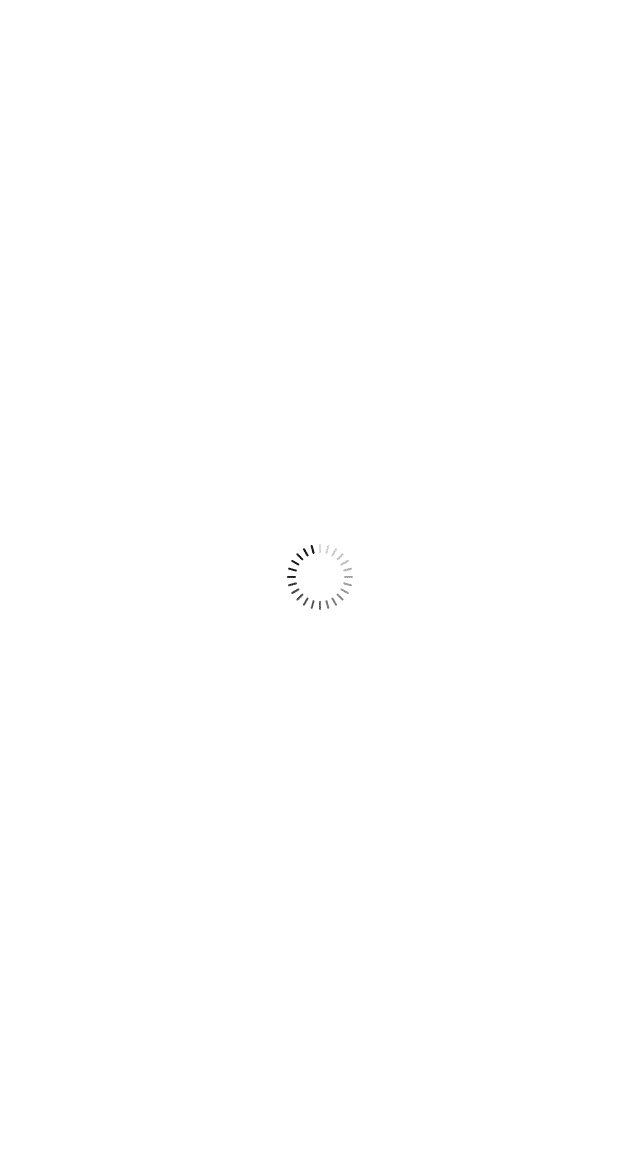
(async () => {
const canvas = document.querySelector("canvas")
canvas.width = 639
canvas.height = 1153
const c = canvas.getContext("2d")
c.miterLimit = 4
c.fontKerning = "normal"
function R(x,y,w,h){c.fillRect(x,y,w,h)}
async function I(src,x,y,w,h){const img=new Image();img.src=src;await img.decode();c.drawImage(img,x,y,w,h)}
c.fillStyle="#fff"
R(0,0,639,1153)
await I("1.png",287,544,66,66)
})()
